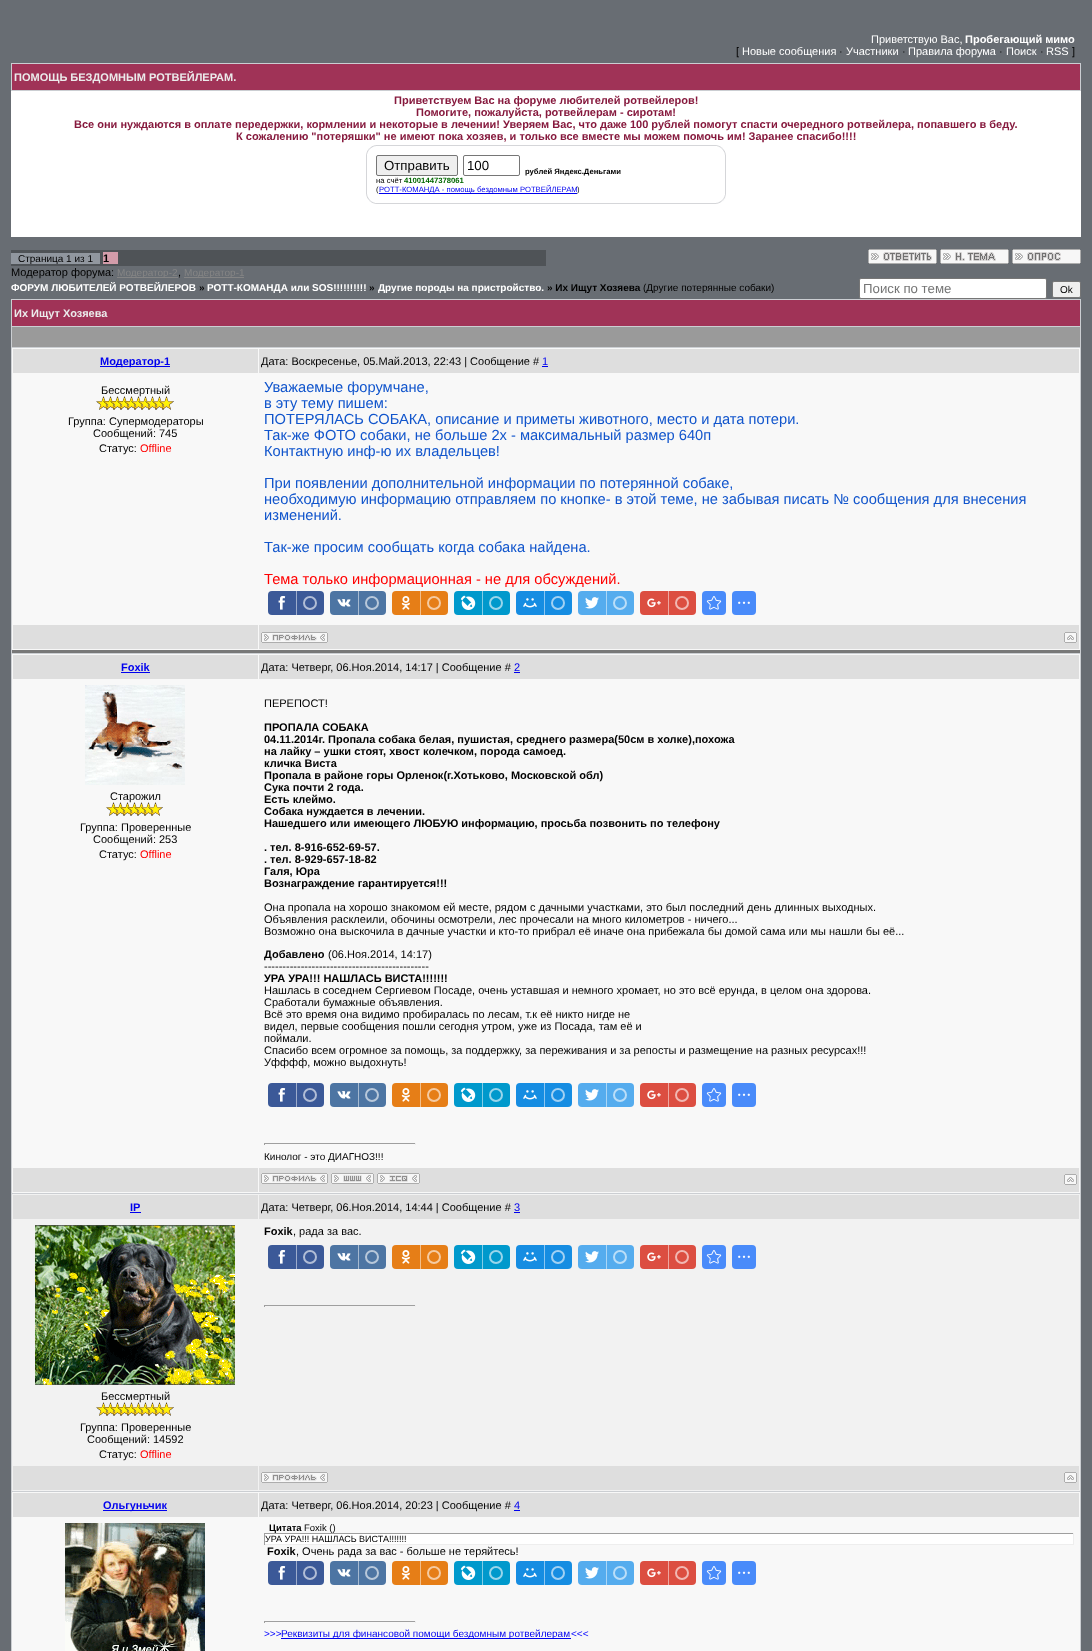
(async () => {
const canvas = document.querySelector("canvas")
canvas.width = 1092
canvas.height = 1651
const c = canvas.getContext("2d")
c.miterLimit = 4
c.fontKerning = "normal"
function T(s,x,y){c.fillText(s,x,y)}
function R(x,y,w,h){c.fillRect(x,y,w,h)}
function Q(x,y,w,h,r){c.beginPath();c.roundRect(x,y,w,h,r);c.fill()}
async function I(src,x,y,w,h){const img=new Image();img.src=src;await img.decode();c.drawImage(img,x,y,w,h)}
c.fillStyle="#686d73"
R(0,0,1092,1651)
c.font="11px Liberation Sans"
c.fillStyle="#fff"
T("Приветствую Вас,",871,43)
c.font="bold 11px Liberation Sans"
T("Пробегающий мимо",965,43)
c.font="11px Liberation Sans"
c.fillStyle="#000"
T("[",736,55)
c.fillStyle="#fff"
T("Новые сообщения",742,55)
c.fillStyle="#000"
T("·",839,55)
c.fillStyle="#fff"
T("Участники",846,55)
c.fillStyle="#000"
T("·",902,55)
c.fillStyle="#fff"
T("Правила форума",908,55)
c.fillStyle="#000"
T("·",999,55)
c.fillStyle="#fff"
T("Поиск",1006,55)
c.fillStyle="#000"
T("·",1040,55)
c.fillStyle="#fff"
T("RSS",1046,55)
c.fillStyle="#000"
T("]",1072,55)
c.fillStyle="#cbced2"
R(11,63,1070,28)
c.fillStyle="#a03357"
R(12,64,1068,26)
c.font="bold 11px Liberation Sans"
c.fillStyle="#ebebeb"
T("ПОМОЩЬ БЕЗДОМНЫМ РОТВЕЙЛЕРАМ.",14,81)
c.fillStyle="#fff"
R(11,91,1070,146)
c.fillStyle="#86193d"
T("Приветствуем Вас на форуме любителей ротвейлеров!",394,104)
T("Помогите, пожалуйста, ротвейлерам - сиротам!",416,116)
T("Все они нуждаются в оплате передержки, кормлении и некоторые в лечении! Уверяем Вас, что даже 100 рублей помогут спасти очередного ротвейлера, попавшего в беду.",74,128)
T("К сожалению \"потеряшки\" не имеют пока хозяев, и только все вместе мы можем помочь им! Заранее cпасибо!!!!",236,140)
await I("1.png",716,145,10,50)
await I("2.png",376,194,350,10)
await I("3.png",366,155,10,49)
await I("4.png",366,145,350,10)
c.fillStyle="#efefef"
c.beginPath()
c.roundRect(376.5,155.5,81,20,1.5)
c.fill()
c.strokeStyle="#767676"
c.stroke()
c.font="13.25px Liberation Sans"
c.fillStyle="#000"
T("Отправить",384,170)
c.beginPath()
c.roundRect(463.5,155.5,56,20,1.5)
c.stroke()
T("100",467,170)
c.font="bold 7.7px Liberation Sans"
T("рублей Яндекс.Деньгами",525,174)
c.font="7.7px Liberation Sans"
T("на счёт",376,183)
c.font="bold 7.7px Liberation Sans"
c.fillStyle="#060"
T("41001447378061",404,183)
c.font="7.7px Liberation Sans"
c.fillStyle="#000"
T("(",376,192)
c.fillStyle="#00e"
R(379,193,198,1)
T("РОТТ-КОМАНДА - помощь бездомным РОТВЕЙЛЕРАМ",379,192)
c.fillStyle="#000"
T(")",577,192)
c.fillStyle="#4f5357"
R(11,250,535,16)
c.fillStyle="#91979f"
R(11,253,89,11)
c.font="10px Liberation Sans"
c.fillStyle="#000"
T("Страница 1 из 1",18,262)
c.fillStyle="#d39caa"
R(103,252,15,12)
c.font="bold 11px Liberation Sans"
c.fillStyle="#000"
T("1",103,262)
await I("5.png",868,249,69,15)
await I("6.png",940,249,69,15)
await I("7.png",1012,249,69,15)
c.font="11px Liberation Sans"
T("Модератор форума:",11,276)
c.fillStyle="#858585"
R(117,277,61,1)
c.font="10px Liberation Sans"
T("Модератор-2",117,276)
c.font="11px Liberation Sans"
c.fillStyle="#000"
T(",",178,276)
c.fillStyle="#858585"
R(184,277,60,1)
c.font="10px Liberation Sans"
T("Модератор-1",184,276)
c.font="bold 10px Liberation Sans"
c.fillStyle="#fff"
T("ФОРУМ ЛЮБИТЕЛЕЙ РОТВЕЙЛЕРОВ",11,291)
c.fillStyle="#000"
T("»",199,291)
c.fillStyle="#fff"
T("РОТТ-КОМАНДА или SOS!!!!!!!!!!",207,291)
c.fillStyle="#000"
T("»",369,291)
c.fillStyle="#fff"
T("Другие породы на пристройство.",378,291)
c.fillStyle="#000"
T("» Их Ищут Хозяева",547,291)
c.font="10px Liberation Sans"
T("(Другие потерянные собаки)",643,291)
c.fillStyle="#fff"
c.beginPath()
c.roundRect(859.5,278.5,187,20,1.5)
c.fill()
c.stroke()
c.font="13.25px Liberation Sans"
c.fillStyle="#757575"
T("Поиск по теме",863,293)
c.fillStyle="#efefef"
c.beginPath()
c.roundRect(1052.5,281.5,28,16,1.5)
c.fill()
c.stroke()
c.font="10px Liberation Sans"
c.fillStyle="#000"
T("Ok",1060,293)
c.fillStyle="#cbced2"
R(11,299,1070,1352)
c.fillStyle="#a03357"
R(12,300,1068,26)
c.font="bold 11px Liberation Sans"
c.fillStyle="#ebebeb"
T("Их Ищут Хозяева",14,317)
c.fillStyle="#9a9a9a"
R(12,327,1068,20)
c.fillStyle="#f8f8f8"
R(12,348,1068,302)
c.fillStyle="#787878"
R(12,650,1068,3)
c.fillStyle="#dedede"
R(13,349,245,24)
c.fillStyle="#00e"
R(100,366,70,1)
T("Модератор-1",100,365)
c.fillStyle="#dedede"
R(259,349,820,24)
c.font="11px Liberation Sans"
c.fillStyle="#000"
T("Дата: Воскресенье, 05.Май.2013, 22:43 | Сообщение #",261,365)
c.fillStyle="#00e"
T("1",542,365)
R(542,366,6,1)
c.fillStyle="#000"
T("Бессмертный",101,394)
await I("8.png",96,396,78,14)
T("Группа: Супермодераторы",68,425)
T("Сообщений: 745",93,437)
T("Статус:",99,452)
c.fillStyle="#f00"
T("Offline",140,452)
c.font="14.67px Liberation Sans"
c.fillStyle="#15c"
T("Уважаемые форумчане,",264,392)
T("в эту тему пишем:",264,408)
T("ПОТЕРЯЛАСЬ СОБАКА, описание и приметы животного, место и дата потери.",264,424)
T("Так-же ФОТО собаки, не больше 2х - максимальный размер 640п",264,440)
T("Контактную инф-ю их владельцев!",264,456)
T("При появлении дополнительной информации по потерянной собаке,",264,488)
T("необходимую информацию отправляем по кнопке- в этой теме, не забывая писать № сообщения для внесения",264,504)
T("изменений.",264,520)
T("Так-же просим сообщать когда собака найдена.",264,552)
c.fillStyle="#f00"
T("Тема только информационная - не для обсуждений.",264,584)
c.fillStyle="#3b5998"
Q(268,591,56,24,4)
await I("9.png",278,596,8,14)
c.fillStyle="#9daccc"
R(296,591,1,24)
c.beginPath()
c.arc(310,603,6,0,7)
c.strokeStyle="#b1bdd6"
c.lineWidth=2
c.stroke()
c.fillStyle="#4d75a3"
Q(330,591,56,24,4)
await I("10.png",337,599,14,8)
c.fillStyle="#a6bad1"
R(358,591,1,24)
c.beginPath()
c.arc(372,603,6,0,7)
c.strokeStyle="#b8c8da"
c.stroke()
c.fillStyle="#e67e17"
Q(392,591,56,24,4)
await I("11.png",401,596,9,14)
c.fillStyle="#f3bf8b"
R(420,591,1,24)
c.beginPath()
c.arc(434,603,6,0,7)
c.strokeStyle="#f5cba2"
c.stroke()
c.fillStyle="#09c"
Q(454,591,56,24,4)
await I("12.png",460,595,16,15)
c.fillStyle="#80cce6"
R(482,591,1,24)
c.beginPath()
c.arc(496,603,6,0,7)
c.strokeStyle="#99d6eb"
c.stroke()
c.fillStyle="#168de2"
Q(516,591,56,24,4)
await I("13.png",523,598,14,10)
c.fillStyle="#8bc6f1"
R(544,591,1,24)
c.beginPath()
c.arc(558,603,6,0,7)
c.strokeStyle="#a2d1f3"
c.stroke()
c.fillStyle="#55acee"
Q(578,591,56,24,4)
await I("14.png",585,597,14,12)
c.fillStyle="#aad6f7"
R(606,591,1,24)
c.beginPath()
c.arc(620,603,6,0,7)
c.strokeStyle="#bbdef8"
c.stroke()
c.fillStyle="#dc4e41"
Q(640,591,56,24,4)
await I("15.png",647,598,14,10)
c.fillStyle="#eea7a0"
R(668,591,1,24)
c.beginPath()
c.arc(682,603,6,0,7)
c.strokeStyle="#f1b8b3"
c.stroke()
c.fillStyle="#498bfa"
Q(702,591,24,24,4)
await I("16.png",706,596,16,14)
Q(732,591,24,24,4)
await I("17.png",738,601,12,3)
c.fillStyle="#dedede"
R(13,625,245,24)
R(259,625,820,24)
await I("18.png",261,632,67,11)
await I("19.png",1064,632,13,11)
c.fillStyle="#f8f8f8"
R(12,654,1068,539)
c.fillStyle="#dedede"
R(13,655,245,24)
c.font="bold 11px Liberation Sans"
c.fillStyle="#00e"
T("Foxik",121,671)
R(121,672,29,1)
c.fillStyle="#dedede"
R(259,655,820,24)
c.font="11px Liberation Sans"
c.fillStyle="#000"
T("Дата: Четверг, 06.Ноя.2014, 14:17 | Сообщение #",261,671)
c.fillStyle="#00e"
T("2",514,671)
R(514,672,6,1)
await I("20.png",85,685,100,100)
c.fillStyle="#000"
T("Старожил",110,800)
await I("21.png",106,802,57,14)
T("Группа: Проверенные",80,831)
T("Сообщений: 253",93,843)
T("Статус:",99,858)
c.fillStyle="#f00"
T("Offline",140,858)
c.fillStyle="#000"
T("ПЕРЕПОСТ!",264,707)
c.font="bold 11px Liberation Sans"
T("ПРОПАЛА СОБАКА",264,731)
T("04.11.2014г. Пропала cобака белая, пушистая, среднего размера(50см в холке),похожа",264,743)
T("на лайку – ушки стоят, хвост колечком, порода самоед.",264,755)
T("кличка Виста",264,767)
T("Пропала в районе горы Орленок(г.Хотьково, Московской обл)",264,779)
T("Сука почти 2 года.",264,791)
T("Есть клеймо.",264,803)
T("Собака нуждается в лечении.",264,815)
T("Нашедшего или имеющего ЛЮБУЮ информацию, просьба позвонить по телефону",264,827)
T(". тел. 8-916-652-69-57.",264,851)
T(". тел. 8-929-657-18-82",264,863)
T("Галя, Юра",264,875)
T("Вознаграждение гарантируется!!!",264,887)
c.font="11px Liberation Sans"
T("Она пропала на хорошо знакомом ей месте, рядом с дачными участками, это был последний день длинных выходных.",264,911)
T("Объявления расклеили, обочины осмотрели, лес прочесали на много километров - ничего...",264,923)
T("Возможно она выскочила в дачные участки и кто-то прибрал её иначе она прибежала бы домой сама или мы нашли бы её...",264,935)
c.font="bold 11px Liberation Sans"
T("Добавлено",264,958)
c.font="11px Liberation Sans"
T("(06.Ноя.2014, 14:17)",328,958)
T("---------------------------------------------",264,970)
c.font="bold 11px Liberation Sans"
T("УРА УРА!!! НАШЛАСЬ ВИСТА!!!!!!!",264,982)
c.font="11px Liberation Sans"
T("Нашлась в соседнем Сергиевом Посаде, очень уставшая и немного хромает, но это всё ерунда, в целом она здорова.",264,994)
T("Сработали бумажные объявления.",264,1006)
T("Всё это время она видимо пробиралась по лесам, т.к её никто нигде не",264,1018)
T("видел, первые сообщения пошли сегодня утром, уже из Посада, там её и",264,1030)
T("поймали.",264,1042)
T("Спасибо всем огромное за помощь, за поддержку, за переживания и за репосты и размещение на разных ресурсах!!!",264,1054)
T("Уфффф, можно выдохнуть!",264,1066)
c.fillStyle="#3b5998"
Q(268,1083,56,24,4)
await I("9.png",278,1088,8,14)
c.fillStyle="#9daccc"
R(296,1083,1,24)
c.beginPath()
c.arc(310,1095,6,0,7)
c.strokeStyle="#b1bdd6"
c.stroke()
c.fillStyle="#4d75a3"
Q(330,1083,56,24,4)
await I("10.png",337,1091,14,8)
c.fillStyle="#a6bad1"
R(358,1083,1,24)
c.beginPath()
c.arc(372,1095,6,0,7)
c.strokeStyle="#b8c8da"
c.stroke()
c.fillStyle="#e67e17"
Q(392,1083,56,24,4)
await I("11.png",401,1088,9,14)
c.fillStyle="#f3bf8b"
R(420,1083,1,24)
c.beginPath()
c.arc(434,1095,6,0,7)
c.strokeStyle="#f5cba2"
c.stroke()
c.fillStyle="#09c"
Q(454,1083,56,24,4)
await I("12.png",460,1087,16,15)
c.fillStyle="#80cce6"
R(482,1083,1,24)
c.beginPath()
c.arc(496,1095,6,0,7)
c.strokeStyle="#99d6eb"
c.stroke()
c.fillStyle="#168de2"
Q(516,1083,56,24,4)
await I("13.png",523,1090,14,10)
c.fillStyle="#8bc6f1"
R(544,1083,1,24)
c.beginPath()
c.arc(558,1095,6,0,7)
c.strokeStyle="#a2d1f3"
c.stroke()
c.fillStyle="#55acee"
Q(578,1083,56,24,4)
await I("14.png",585,1089,14,12)
c.fillStyle="#aad6f7"
R(606,1083,1,24)
c.beginPath()
c.arc(620,1095,6,0,7)
c.strokeStyle="#bbdef8"
c.stroke()
c.fillStyle="#dc4e41"
Q(640,1083,56,24,4)
await I("15.png",647,1090,14,10)
c.fillStyle="#eea7a0"
R(668,1083,1,24)
c.beginPath()
c.arc(682,1095,6,0,7)
c.strokeStyle="#f1b8b3"
c.stroke()
c.fillStyle="#498bfa"
Q(702,1083,24,24,4)
await I("16.png",706,1088,16,14)
Q(732,1083,24,24,4)
await I("17.png",738,1093,12,3)
c.fillStyle="#9f9f9f"
R(264,1143,152,1)
c.fillStyle="#eee"
R(415,1143,1,2)
c.fillStyle="#9f9f9f"
R(264,1143,1,2)
c.font="10px Liberation Sans"
c.fillStyle="#000"
T("Кинолог - это ДИАГНОЗ!!!",264,1160)
c.fillStyle="#dedede"
R(13,1168,245,24)
R(259,1168,820,24)
await I("18.png",261,1173,67,11)
await I("22.png",331,1173,43,11)
await I("23.png",377,1173,43,11)
await I("19.png",1064,1174,13,11)
c.fillStyle="#f2f2f2"
R(12,1194,1068,297)
c.fillStyle="#dedede"
R(13,1195,245,24)
c.font="bold 11px Liberation Sans"
c.fillStyle="#00e"
T("IP",130,1211)
R(130,1212,11,1)
c.fillStyle="#dedede"
R(259,1195,820,24)
c.font="11px Liberation Sans"
c.fillStyle="#000"
T("Дата: Четверг, 06.Ноя.2014, 14:44 | Сообщение #",261,1211)
c.fillStyle="#00e"
T("3",514,1211)
R(514,1212,6,1)
c.font="bold 11px Liberation Sans"
c.fillStyle="#000"
T("Foxik",264,1235)
c.font="11px Liberation Sans"
T(", рада за вас.",293,1235)
c.fillStyle="#3b5998"
Q(268,1245,56,24,4)
await I("9.png",278,1250,8,14)
c.fillStyle="#9daccc"
R(296,1245,1,24)
c.beginPath()
c.arc(310,1257,6,0,7)
c.strokeStyle="#b1bdd6"
c.stroke()
c.fillStyle="#4d75a3"
Q(330,1245,56,24,4)
await I("10.png",337,1253,14,8)
c.fillStyle="#a6bad1"
R(358,1245,1,24)
c.beginPath()
c.arc(372,1257,6,0,7)
c.strokeStyle="#b8c8da"
c.stroke()
c.fillStyle="#e67e17"
Q(392,1245,56,24,4)
await I("11.png",401,1250,9,14)
c.fillStyle="#f3bf8b"
R(420,1245,1,24)
c.beginPath()
c.arc(434,1257,6,0,7)
c.strokeStyle="#f5cba2"
c.stroke()
c.fillStyle="#09c"
Q(454,1245,56,24,4)
await I("12.png",460,1249,16,15)
c.fillStyle="#80cce6"
R(482,1245,1,24)
c.beginPath()
c.arc(496,1257,6,0,7)
c.strokeStyle="#99d6eb"
c.stroke()
c.fillStyle="#168de2"
Q(516,1245,56,24,4)
await I("13.png",523,1252,14,10)
c.fillStyle="#8bc6f1"
R(544,1245,1,24)
c.beginPath()
c.arc(558,1257,6,0,7)
c.strokeStyle="#a2d1f3"
c.stroke()
c.fillStyle="#55acee"
Q(578,1245,56,24,4)
await I("14.png",585,1251,14,12)
c.fillStyle="#aad6f7"
R(606,1245,1,24)
c.beginPath()
c.arc(620,1257,6,0,7)
c.strokeStyle="#bbdef8"
c.stroke()
c.fillStyle="#dc4e41"
Q(640,1245,56,24,4)
await I("15.png",647,1252,14,10)
c.fillStyle="#eea7a0"
R(668,1245,1,24)
c.beginPath()
c.arc(682,1257,6,0,7)
c.strokeStyle="#f1b8b3"
c.stroke()
c.fillStyle="#498bfa"
Q(702,1245,24,24,4)
await I("16.png",706,1250,16,14)
Q(732,1245,24,24,4)
await I("17.png",738,1255,12,3)
c.fillStyle="#9f9f9f"
R(264,1305,152,1)
c.fillStyle="#eee"
R(415,1305,1,2)
c.fillStyle="#9f9f9f"
R(264,1305,1,2)
await I("24.png",35,1225,200,160)
c.fillStyle="#000"
T("Бессмертный",101,1400)
await I("25.png",96,1402,78,14)
T("Группа: Проверенные",80,1431)
T("Сообщений: 14592",87,1443)
T("Статус:",99,1458)
c.fillStyle="#f00"
T("Offline",140,1458)
c.fillStyle="#dedede"
R(13,1466,245,24)
R(259,1466,820,24)
await I("18.png",261,1472,67,11)
await I("19.png",1064,1472,13,11)
c.fillStyle="#f8f8f8"
R(12,1492,1068,159)
c.fillStyle="#dedede"
R(13,1493,245,24)
c.fillStyle="#00e"
R(103,1510,64,1)
c.font="bold 11px Liberation Sans"
T("Ольгуньчик",103,1509)
c.fillStyle="#dedede"
R(259,1493,820,24)
c.font="11px Liberation Sans"
c.fillStyle="#000"
T("Дата: Четверг, 06.Ноя.2014, 20:23 | Сообщение #",261,1509)
c.fillStyle="#00e"
T("4",514,1509)
R(514,1510,6,1)
await I("26.png",65,1523,140,128)
c.font="bold 9.5px Liberation Sans"
c.fillStyle="#000"
T("Цитата",269,1531)
c.font="9.5px Liberation Sans"
T("Foxik ()",304,1531)
c.fillStyle="#fff"
R(265,1534,808,10)
c.fillStyle="#9f9f9f"
R(264,1533,810,1)
c.fillStyle="#eee"
R(1073,1533,1,12)
R(264,1544,810,1)
c.fillStyle="#9f9f9f"
R(264,1533,1,12)
c.font="9px Liberation Sans"
c.fillStyle="#000"
T("УРА УРА!!! НАШЛАСЬ ВИСТА!!!!!!!",265,1542)
c.font="bold 11px Liberation Sans"
T("Foxik",267,1555)
c.font="11px Liberation Sans"
T(", Очень рада за вас - больше не теряйтесь!",296,1555)
c.fillStyle="#3b5998"
Q(268,1561,56,24,4)
await I("9.png",278,1566,8,14)
c.fillStyle="#9daccc"
R(296,1561,1,24)
c.beginPath()
c.arc(310,1573,6,0,7)
c.strokeStyle="#b1bdd6"
c.stroke()
c.fillStyle="#4d75a3"
Q(330,1561,56,24,4)
await I("10.png",337,1569,14,8)
c.fillStyle="#a6bad1"
R(358,1561,1,24)
c.beginPath()
c.arc(372,1573,6,0,7)
c.strokeStyle="#b8c8da"
c.stroke()
c.fillStyle="#e67e17"
Q(392,1561,56,24,4)
await I("11.png",401,1566,9,14)
c.fillStyle="#f3bf8b"
R(420,1561,1,24)
c.beginPath()
c.arc(434,1573,6,0,7)
c.strokeStyle="#f5cba2"
c.stroke()
c.fillStyle="#09c"
Q(454,1561,56,24,4)
await I("12.png",460,1565,16,15)
c.fillStyle="#80cce6"
R(482,1561,1,24)
c.beginPath()
c.arc(496,1573,6,0,7)
c.strokeStyle="#99d6eb"
c.stroke()
c.fillStyle="#168de2"
Q(516,1561,56,24,4)
await I("13.png",523,1568,14,10)
c.fillStyle="#8bc6f1"
R(544,1561,1,24)
c.beginPath()
c.arc(558,1573,6,0,7)
c.strokeStyle="#a2d1f3"
c.stroke()
c.fillStyle="#55acee"
Q(578,1561,56,24,4)
await I("14.png",585,1567,14,12)
c.fillStyle="#aad6f7"
R(606,1561,1,24)
c.beginPath()
c.arc(620,1573,6,0,7)
c.strokeStyle="#bbdef8"
c.stroke()
c.fillStyle="#dc4e41"
Q(640,1561,56,24,4)
await I("15.png",647,1568,14,10)
c.fillStyle="#eea7a0"
R(668,1561,1,24)
c.beginPath()
c.arc(682,1573,6,0,7)
c.strokeStyle="#f1b8b3"
c.stroke()
c.fillStyle="#498bfa"
Q(702,1561,24,24,4)
await I("16.png",706,1566,16,14)
Q(732,1561,24,24,4)
await I("17.png",738,1571,12,3)
c.fillStyle="#9f9f9f"
R(264,1621,152,1)
c.fillStyle="#eee"
R(415,1621,1,2)
c.fillStyle="#9f9f9f"
R(264,1621,1,2)
c.font="10px Liberation Sans"
c.fillStyle="#00f"
T(">>>",264,1637)
c.fillStyle="#00e"
R(281,1638,290,1)
T("Реквизиты для финансовой помощи бездомным ротвейлерам",281,1637)
c.fillStyle="#00f"
T("<<<",571,1637)
})()
